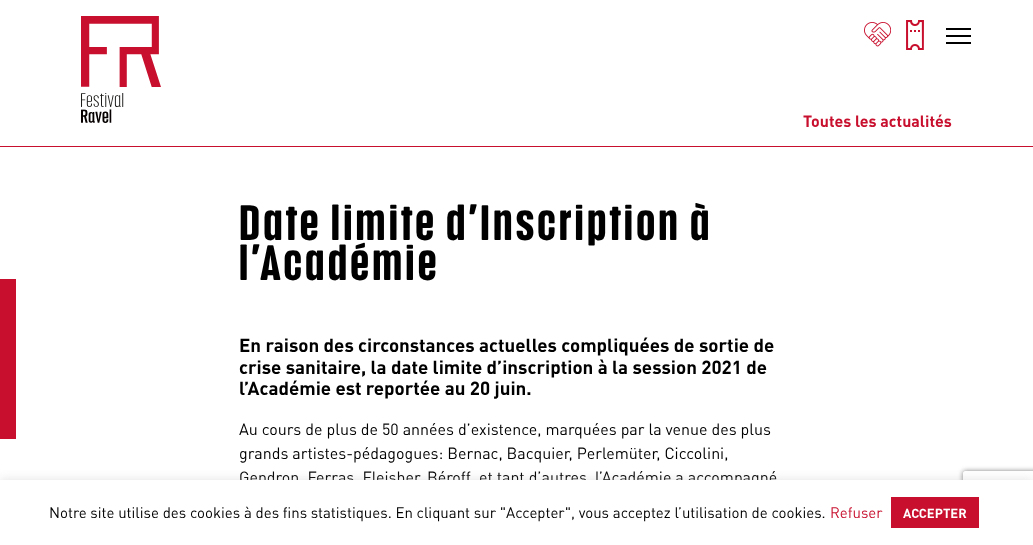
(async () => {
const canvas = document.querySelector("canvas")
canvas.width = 1033
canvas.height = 545
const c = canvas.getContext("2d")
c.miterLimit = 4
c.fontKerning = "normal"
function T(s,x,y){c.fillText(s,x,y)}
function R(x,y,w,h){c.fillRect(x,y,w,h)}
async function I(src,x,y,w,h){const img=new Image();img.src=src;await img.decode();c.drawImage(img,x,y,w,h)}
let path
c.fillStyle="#fff"
R(0,0,1033,545)
c.fillStyle="#000"
R(946,35,25,2)
R(946,28,25,2)
R(946,42,25,2)
await I("1.png",81,16,80,107)
await I("2.png",864,22,27,25)
await I("3.png",906,20,18,30)
c.fillStyle="#c8102e"
R(0,146,1033,1)
c.font="bold 16px DIN"
T("Toutes les actualités",803,127)
R(0,279,16,160)
c.letterSpacing="3.2px"
c.font="bold 48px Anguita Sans"
c.fillStyle="#000"
T("Date limite d’Inscription à",239,240)
T("l’Académie",239,280)
c.letterSpacing="0px"
c.font="bold 18.75px DIN"
T("En raison des circonstances actuelles compliquées de sortie de",239,352)
T("crise sanitaire, la date limite d’inscription à la session 2021 de",239,374)
T("l’Académie est reportée au 20 juin.",239,395)
c.font="16px DIN"
T("Au cours de plus de 50 années d’existence, marquées par la venue des plus",239,435)
T("grands artistes-pédagogues: Bernac, Bacquier, Perlemüter, Ciccolini,",239,459)
T("Gendron, Ferras, Fleisher, Béroff, et tant d’autres, l’Académie a accompagné",239,483)
c.fillStyle="#acabab4d"
c.filter="blur(5px)"
c.beginPath()
c.rect(0,479,1033,65)
c.fill()
c.filter="none"
c.save()
path = new Path2D("M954 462h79v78h-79zm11 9h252c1 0 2 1 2 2v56c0 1-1 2-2 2h-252c-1 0-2-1-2-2v-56c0-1 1-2 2-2z")
c.clip(path,"evenodd")
c.fillStyle="#808080"
c.filter="blur(2.5px)"
c.beginPath()
c.roundRect(963,471,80,60,2)
c.fill()
c.filter="none"
c.restore()
c.fillStyle="#fff"
R(0,480,1033,65)
c.font="15px DIN"
c.fillStyle="#000"
T("Notre site utilise des cookies à des fins statistiques. En cliquant sur \"Accepter\", vous acceptez l’utilisation de cookies.",49,518)
c.fillStyle="#c8102e"
T("Refuser",830,518)
R(891,497,88,31)
c.font="bold 13px DIN"
c.fillStyle="#fff"
T("ACCEPTER",903,518)
})()
